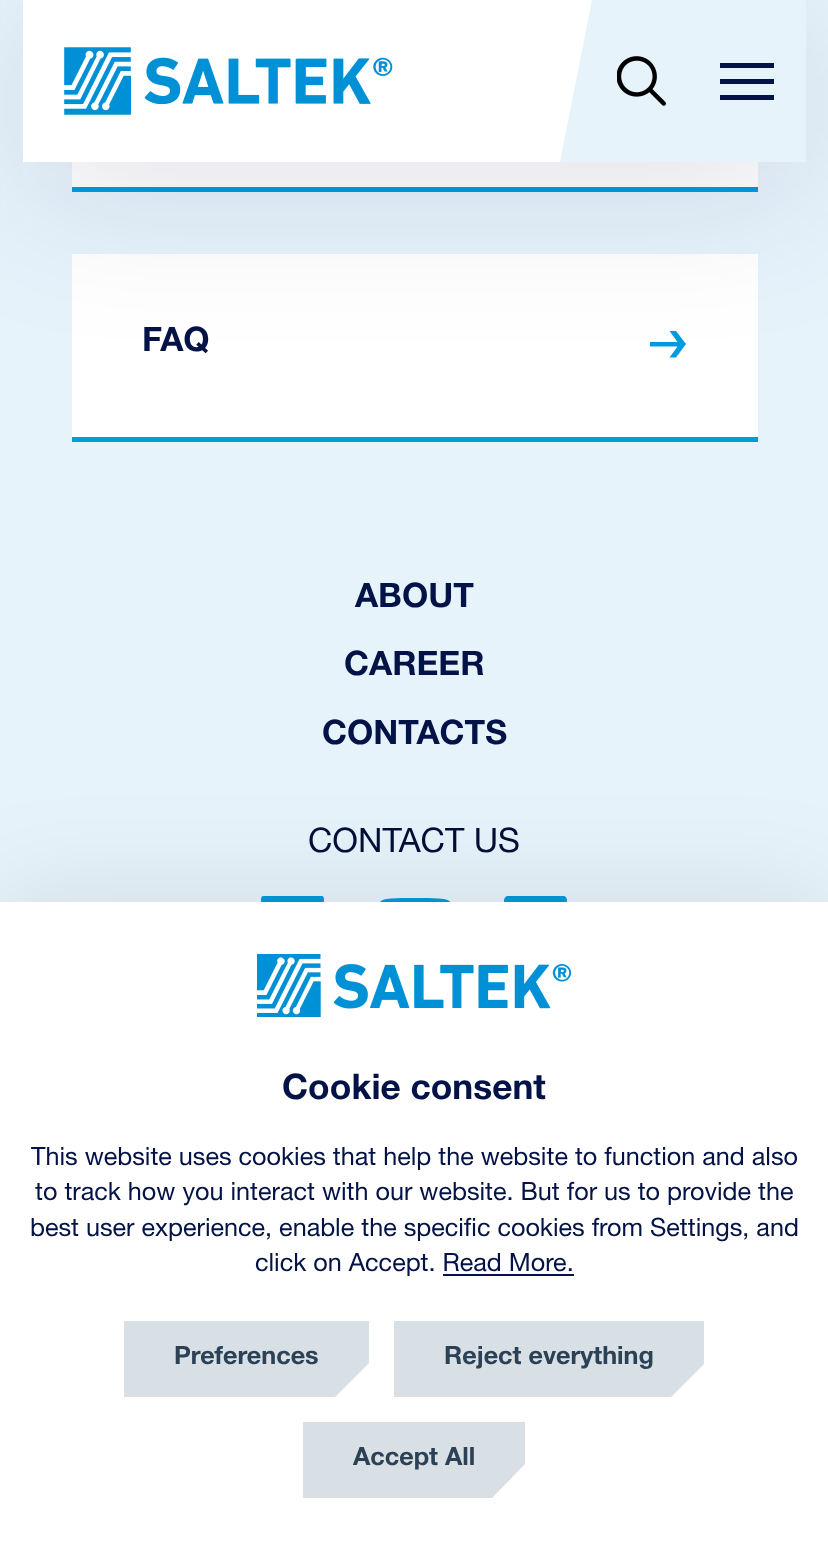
(async () => {
const canvas = document.querySelector("canvas")
canvas.width = 828
canvas.height = 1546
const c = canvas.getContext("2d")
c.miterLimit = 4
c.fontKerning = "normal"
function T(s,x,y){c.fillText(s,x,y)}
function R(x,y,w,h){c.fillRect(x,y,w,h)}
async function I(src,x,y,w,h){const img=new Image();img.src=src;await img.decode();c.drawImage(img,x,y,w,h)}
let path
c.fillStyle="#e7f3fb"
R(0,0,828,1546)
c.fillStyle="#fff"
R(72,162,686,25)
c.fillStyle="#009bdf"
R(72,187,686,5)
c.fillStyle="#fff"
R(72,254,686,183)
c.fillStyle="#009bdf"
path = new Path2D("M676 331h-6.5l8 11h-27.5v4.5h27.5l-8 11h6.5l10-13.5z")
c.fill(path)
c.fillStyle="#04134721"
c.filter="blur(79px)"
c.beginPath()
c.rect(23,23,783,162)
c.fill()
c.filter="none"
c.fillStyle="#fff"
R(23,0,569,162)
await I("1.png",64,47,329,68)
c.fillStyle="#e7f3fb"
path = new Path2D("M592 0l-32 162h246v-162z")
c.fill(path)
await I("2.png",617,56,49,50)
c.fillStyle="#041347"
R(720,63,54,5)
R(720,79,54,5)
R(720,95,54,5)
c.fillStyle="#009bdf"
R(72,437,686,5)
c.font="bold 33.75px Helvetica Neue"
c.fillStyle="#041347"
T("FAQ",142,351)
T("ABOUT",355,607)
T("CAREER",344,675)
T("CONTACTS",322,744)
c.font="33.75px Helvetica Neue"
c.fillStyle="#040f37"
T("CONTACT US",308,852)
await I("3.png",261,896,63,6)
await I("4.png",380,898,71,4)
await I("5.png",504,896,63,6)
c.fillStyle="#0000001a"
c.filter="blur(56px)"
c.beginPath()
c.rect(0,902,828,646)
c.fill()
c.filter="none"
c.fillStyle="#fff"
R(0,902,828,644)
await I("6.png",257,954,315,63)
c.font="bold 35.25px Helvetica Neue"
c.fillStyle="#041347"
T("Cookie consent",282,1099)
c.font="25.2px Helvetica Neue"
T("This website uses cookies that help the website to function and also",31,1165)
T("to track how you interact with our website. But for us to provide the",35,1200)
T("best user experience, enable the specific cookies from Settings, and",30,1236)
T("click on Accept. Read More.",255,1271)
R(443,1274,131,2)
c.fillStyle="#d8e0e6"
path = new Path2D("M124 1397v-76h245v42l-34 34z")
c.fill(path)
c.font="bold 25.2px Helvetica Neue"
c.fillStyle="#2d4156"
T("Preferences",174,1364)
c.fillStyle="#d8e0e6"
path = new Path2D("M394 1397v-76h310v43l-33 33z")
c.fill(path)
c.fillStyle="#2d4156"
T("Reject everything",444,1364)
c.fillStyle="#d8e0e6"
path = new Path2D("M303 1422v76h189l33-34v-42z")
c.fill(path)
c.fillStyle="#2d4156"
T("Accept All",353,1465)
})()
